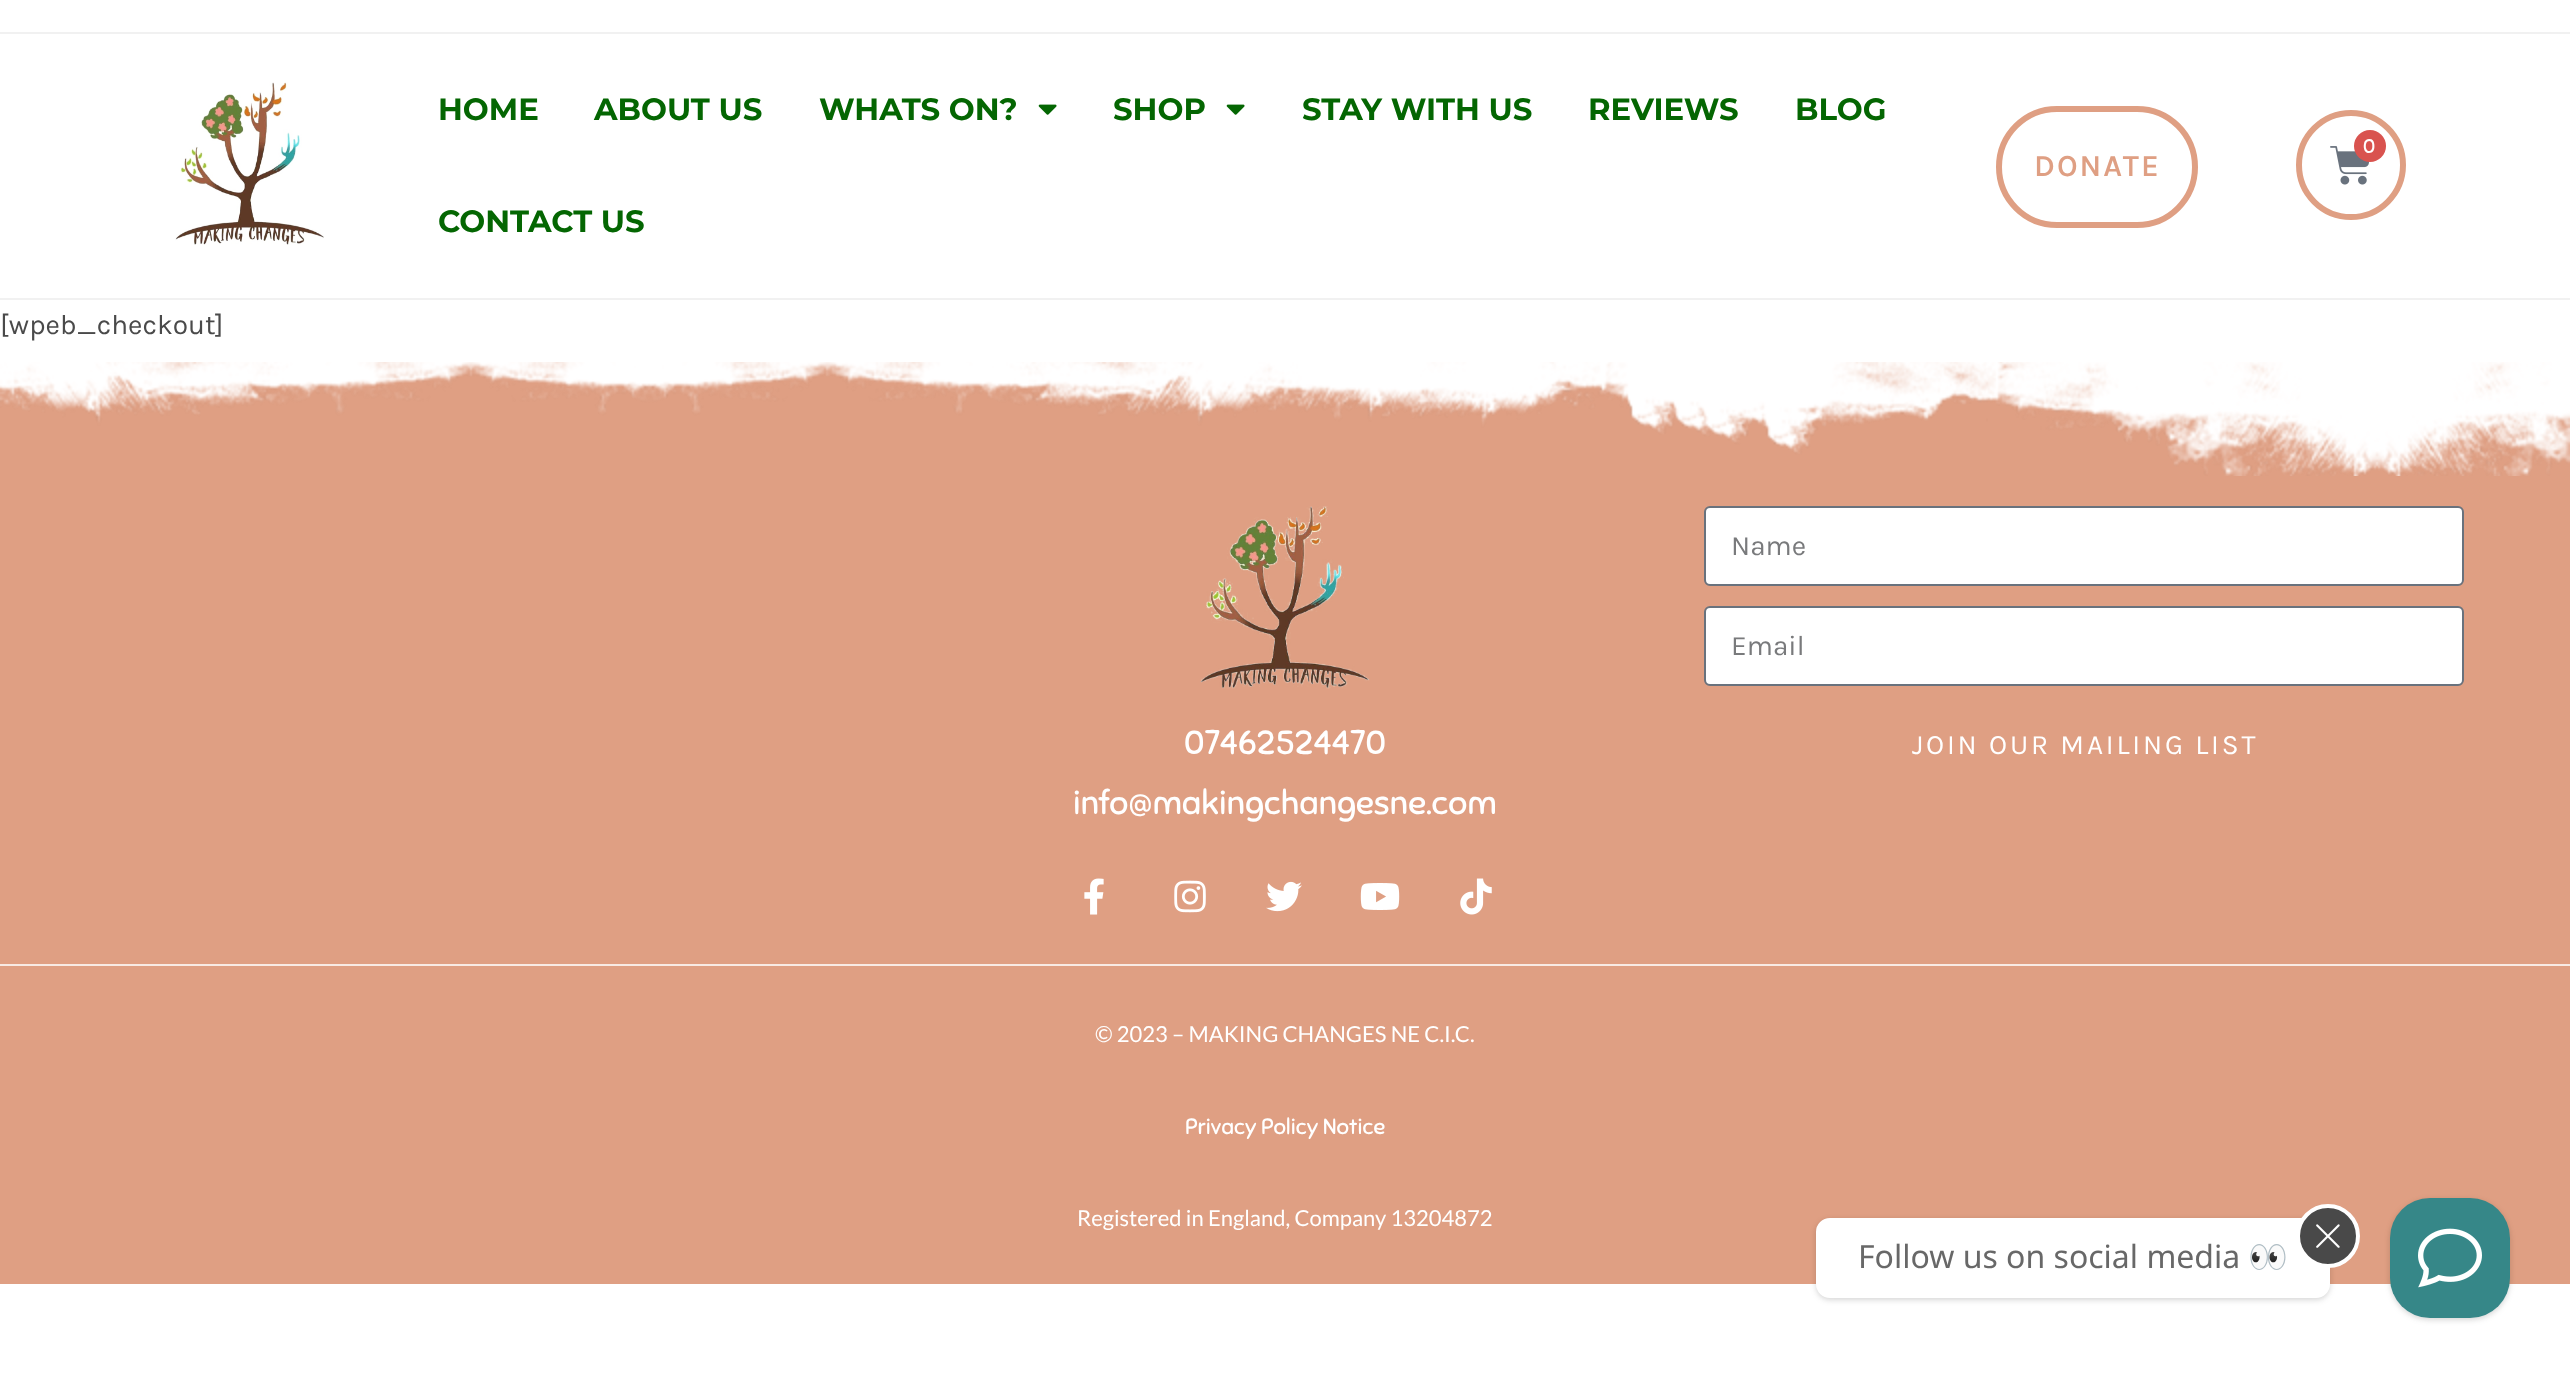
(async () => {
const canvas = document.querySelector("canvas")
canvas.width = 2570
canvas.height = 1377
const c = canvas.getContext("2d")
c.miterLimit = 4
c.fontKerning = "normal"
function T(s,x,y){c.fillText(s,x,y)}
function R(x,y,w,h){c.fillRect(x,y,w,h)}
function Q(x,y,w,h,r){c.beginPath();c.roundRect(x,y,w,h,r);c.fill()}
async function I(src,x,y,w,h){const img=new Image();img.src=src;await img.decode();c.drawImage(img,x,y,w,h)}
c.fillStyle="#fff"
R(0,0,2570,1377)
c.fillStyle="#f1f1f1"
R(0,32,2570,2)
R(0,298,2570,2)
await I("1.png",175,82,149,163)
c.font="bold 30.75px Montserrat"
c.fillStyle="#046602"
T("HOME",438,120)
T("ABOUT US",594,120)
T("WHATS ON?",819,120)
await I("2.png",1038,104,19,11)
T("SHOP",1113,120)
await I("2.png",1226,104,19,11)
T("STAY WITH US",1302,120)
T("REVIEWS",1588,120)
T("BLOG",1795,120)
T("CONTACT US",438,232)
c.beginPath()
c.arc(2351,165,52,0,7)
c.strokeStyle="#df9f83"
c.lineWidth=6
c.stroke()
await I("3.png",2330,146,40,39)
c.fillStyle="#d9534f"
c.beginPath()
c.arc(2370,146,16,0,7)
c.fill()
c.font="20px Sniglet"
c.fillStyle="#fff"
T("0",2363,153)
c.beginPath()
c.roundRect(1999,109,196,116,58)
c.stroke()
c.letterSpacing="2px"
c.font="600 30.75px Karla"
c.fillStyle="#df9f83"
T("DONATE",2034,176)
c.letterSpacing="0px"
c.font="28px Karla"
c.fillStyle="#4a4a4a"
T("[wpeb_checkout]",0,334)
c.fillStyle="#df9f83"
R(0,362,2570,602)
await I("4.png",0,362,2570,114)
c.fillStyle="#fff"
c.beginPath()
c.roundRect(1705,507,758,78,5)
c.fill()
c.strokeStyle="#69727d"
c.lineWidth=2
c.stroke()
c.fillStyle="#797a7c"
T("Name",1731,555)
c.fillStyle="#fff"
c.beginPath()
c.roundRect(1705,607,758,78,5)
c.fill()
c.stroke()
c.fillStyle="#797a7c"
T("Email",1731,655)
c.letterSpacing="2.8px"
c.fillStyle="#fff"
T("JOIN OUR MAILING LIST",1912,754)
await I("5.png",1200,506,170,183)
c.letterSpacing="0px"
c.font="33.6px Sniglet"
T("07462524470",1184,754)
T("info@makingchangesne.com",1073,814)
await I("6.png",1084,878,20,37)
await I("7.png",1174,880,32,33)
await I("8.png",1266,881,36,31)
await I("9.png",1360,883,40,27)
await I("10.png",1460,878,32,37)
c.fillStyle="#df9f83"
R(0,966,2570,318)
c.fillStyle="#f8eae4"
R(0,964,2570,2)
c.font="22px Lato"
c.fillStyle="#fff"
T("© 2023 – MAKING CHANGES NE C.I.C.",1095,1042)
c.font="22px Sniglet"
T("Privacy Policy Notice",1185,1134)
c.font="22px Lato"
T("Registered in England, Company 13204872",1077,1226)
c.fillStyle="#0000000f"
c.filter="blur(2px)"
c.beginPath()
c.roundRect(1816,1220,514,80,14)
c.fill()
c.filter="none"
c.fillStyle="#0000001a"
c.filter="blur(3px)"
c.beginPath()
c.roundRect(1816,1220,514,80,14)
c.fill()
c.filter="none"
c.fillStyle="#fff"
c.beginPath()
c.roundRect(1817,1219,512,78,13)
c.fill()
c.strokeStyle="#fff"
c.stroke()
c.font="32px Noto Sans"
c.fillStyle="#686868"
T("Follow us on social media",1858,1268)
c.save()
c.beginPath()
c.rect(1858,1240,430,36)
c.clip()
c.font="32px Noto Color Emoji"
T("👀",2248,1268)
c.restore()
c.fillStyle="#494949"
c.beginPath()
c.arc(2328,1236,30,0,7)
c.fill()
c.lineWidth=4
c.stroke()
await I("11.png",2316,1224,24,24)
c.fillStyle="#0000000f"
c.filter="blur(2px)"
c.beginPath()
c.roundRect(2390,1200,120,120,40)
c.fill()
c.filter="none"
c.fillStyle="#0000001a"
c.filter="blur(3px)"
c.beginPath()
c.roundRect(2390,1200,120,120,40)
c.fill()
c.filter="none"
c.fillStyle="#368788"
Q(2390,1198,120,120,40)
await I("12.png",2418,1228,64,60)
})()
